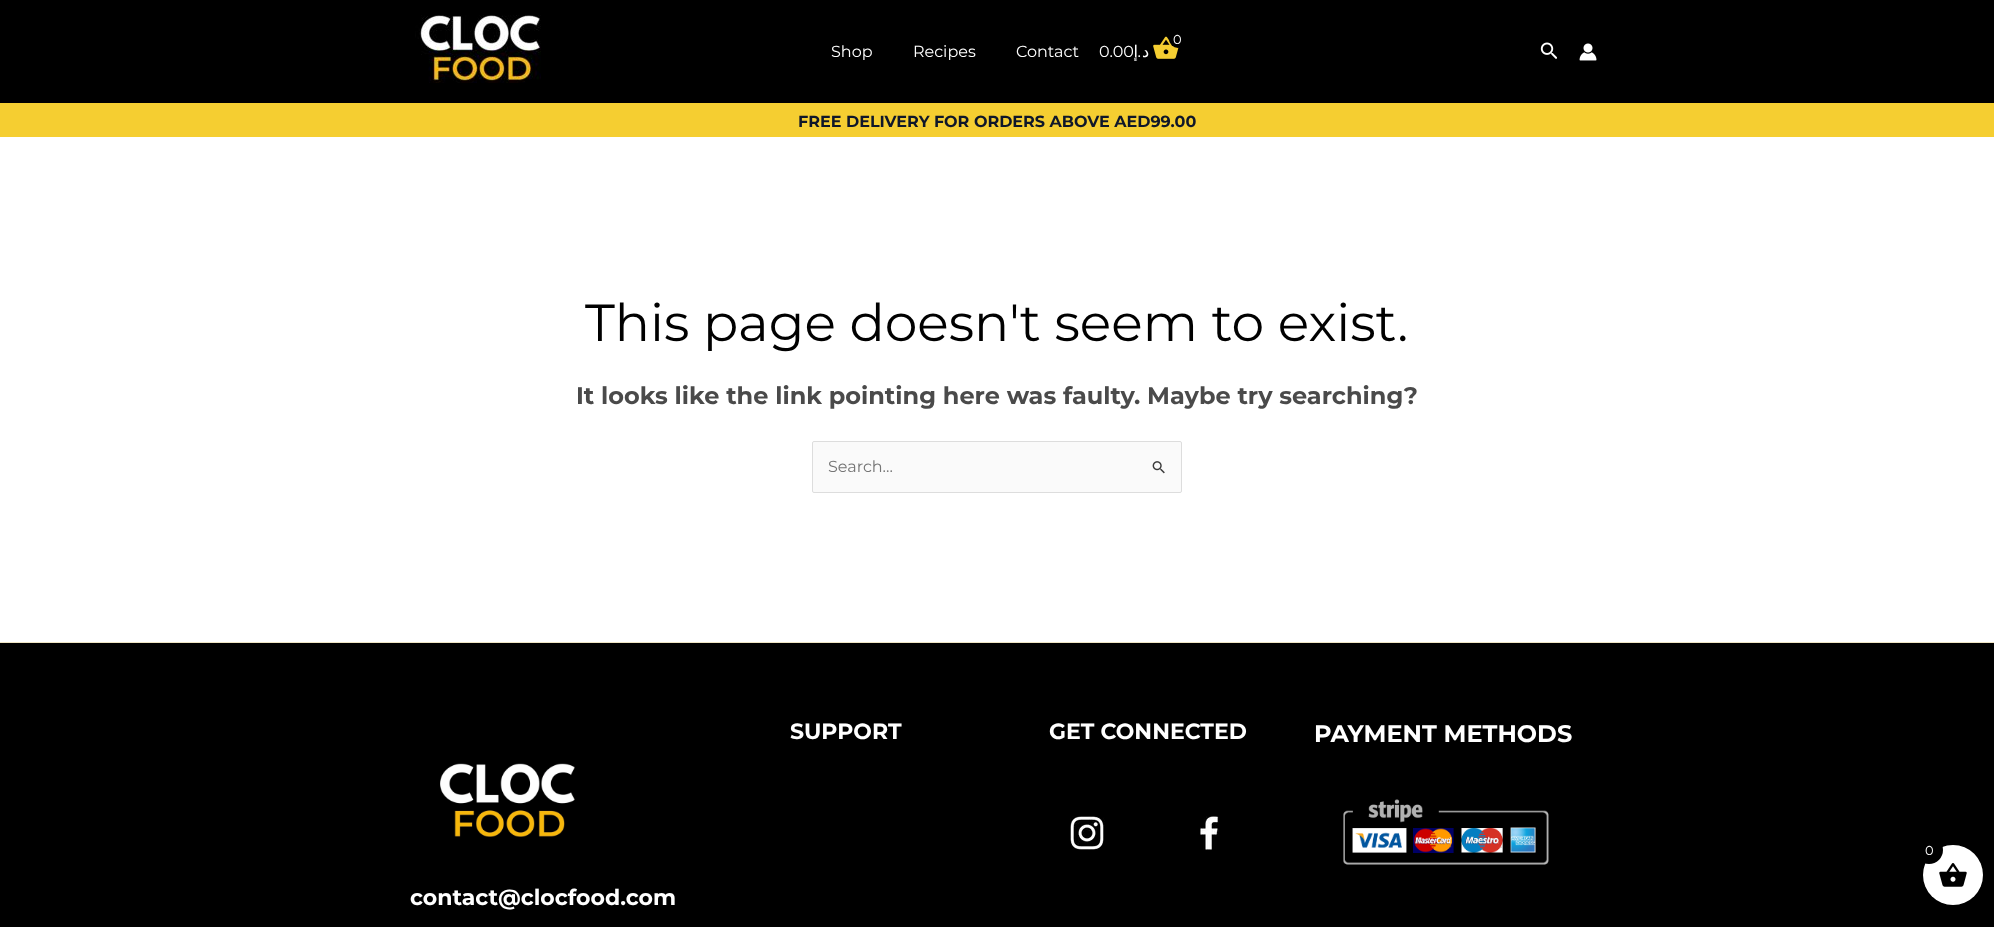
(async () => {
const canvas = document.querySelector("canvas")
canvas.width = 1994
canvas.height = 927
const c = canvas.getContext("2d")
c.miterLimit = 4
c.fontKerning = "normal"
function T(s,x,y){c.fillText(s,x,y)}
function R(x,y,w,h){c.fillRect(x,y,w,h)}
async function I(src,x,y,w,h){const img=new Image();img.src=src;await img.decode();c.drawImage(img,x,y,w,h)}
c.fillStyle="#fff"
R(0,0,1994,927)
c.fillStyle="#000"
R(0,0,1994,103)
await I("1.png",415,15,126,68)
c.font="16px Montserrat"
c.fillStyle="#fff"
T("Shop",831,57)
T("Recipes",913,57)
T("Contact",1016,57)
await I("2.png",1153,36,26,23)
c.fillStyle="#000"
c.beginPath()
c.arc(1178,39,9,0,7)
c.fill()
c.font="13px Montserrat"
c.fillStyle="#fff"
T("0",1173,44)
c.font="16px Montserrat"
T("0.00",1099,57)
c.direction="rtl"
c.font="16px DejaVu Sans"
T("إ",1138,57)
c.font="16px Montserrat"
T(".",1141,57)
c.font="16px DejaVu Sans"
T("د",1149,57)
await I("3.png",1540,42,17,17)
await I("4.png",1579,43,18,18)
c.fillStyle="#f5ce31"
R(0,103,1994,34)
c.direction="ltr"
c.font="bold 16px Montserrat"
c.fillStyle="#0f172a"
T("FREE DELIVERY FOR ORDERS ABOVE AED99.00",798,127)
c.font="52px Montserrat"
c.fillStyle="#000"
T("This page doesn't seem to exist.",585,341)
c.font="bold 24px Montserrat"
c.fillStyle="#4a4a4a"
T("It looks like the link pointing here was faulty. Maybe try searching?",576,404)
c.fillStyle="#fafafa"
c.beginPath()
c.roundRect(812.5,441.5,369,51,1.5)
c.fill()
c.strokeStyle="#ddd"
c.stroke()
c.font="16px Montserrat"
c.fillStyle="#757575"
T("Search...",828,472)
await I("5.png",1152,461,13,13)
c.fillStyle="#000"
R(0,643,1994,284)
c.fillStyle="#f0e6c5"
R(0,642,1994,1)
c.font="bold 22px Montserrat"
c.fillStyle="#fff"
T("SUPPORT",790,739)
T("GET CONNECTED",1049,739)
await I("6.png",1070,816,35,34)
await I("7.png",1200,816,19,34)
c.font="bold 24px Montserrat"
T("PAYMENT METHODS",1314,742)
await I("8.png",1343,799,206,66)
await I("9.png",440,763,135,74)
c.font="bold 22px Montserrat"
T("contact@clocfood.com",410,905)
c.beginPath()
c.arc(1953,875,30,0,7)
c.fill()
await I("10.png",1939,863,28,24)
c.fillStyle="#000"
c.beginPath()
c.arc(1929,850,14,0,7)
c.fill()
c.font="13px Montserrat"
c.fillStyle="#fff"
T("0",1925,855)
})()
